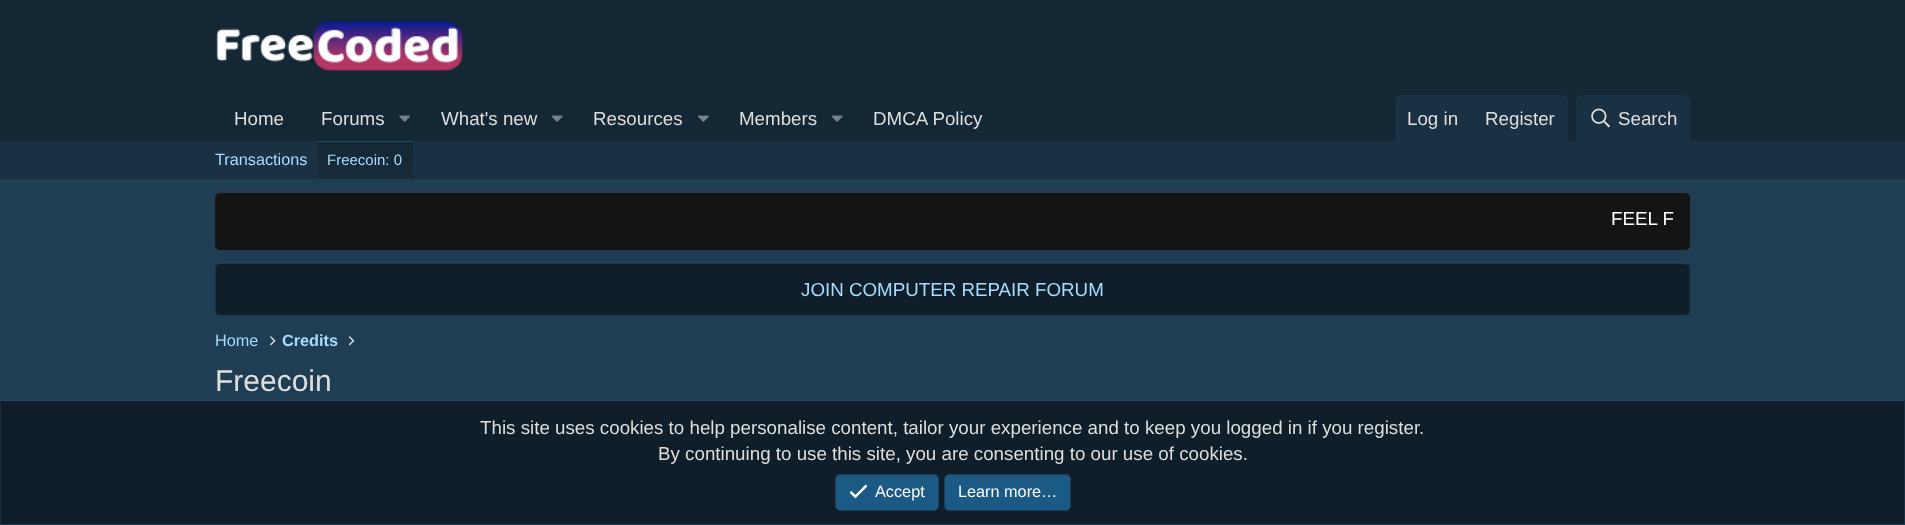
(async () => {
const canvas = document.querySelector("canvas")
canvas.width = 1905
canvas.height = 525
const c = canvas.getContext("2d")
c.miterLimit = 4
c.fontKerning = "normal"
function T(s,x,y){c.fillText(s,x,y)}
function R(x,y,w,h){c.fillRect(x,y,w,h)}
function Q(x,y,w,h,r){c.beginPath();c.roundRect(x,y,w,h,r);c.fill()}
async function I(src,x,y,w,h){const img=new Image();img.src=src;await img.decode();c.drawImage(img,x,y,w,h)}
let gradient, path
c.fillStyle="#203e53"
R(0,0,1905,525)
c.fillStyle="#142734"
R(0,0,1905,141)
await I("1.png",216,21,247,51)
c.font="18.75px Liberation Sans"
c.fillStyle="#dedede"
T("Home",234,125)
T("Forums",321,125)
await I("2.png",399,115,11,7)
T("What's new",441,125)
await I("3.png",551,115,12,7)
T("Resources",593,125)
await I("4.png",698,115,11,7)
T("Members",739,125)
await I("3.png",831,115,12,7)
T("DMCA Policy",873,125)
c.fillStyle="#193142"
c.beginPath()
c.roundRect(1395,95,173,46,[5,5,0,0])
c.fill()
c.fillStyle="#dedede"
T("Log in",1407,125)
T("Register",1485,125)
c.fillStyle="#193142"
c.beginPath()
c.roundRect(1576,95,114,46,[5,5,0,0])
c.fill()
await I("5.png",1591,108,19,20)
c.fillStyle="#dedede"
T("Search",1618,125)
c.fillStyle="#193142"
R(0,141,1905,38)
c.fillStyle="#1d3c50"
R(0,179,1905,1)
c.font="16.25px Liberation Sans"
c.fillStyle="#a6dcff"
T("Transactions",215,165)
gradient = c.createLinearGradient(365,106,365,143)
gradient.addColorStop(0,"#142734")
gradient.addColorStop(1,"#172c3b")
c.fillStyle = gradient
R(318,142,95,1)
gradient = c.createLinearGradient(365,143,365,179)
gradient.addColorStop(0,"#142734")
gradient.addColorStop(1,"#172c3b")
c.fillStyle = gradient
R(318,143,95,36)
c.fillStyle="#244961"
R(318,141,95,1)
c.font="15px Liberation Sans"
c.fillStyle="#a6dcff"
T("Freecoin: 0",327,165)
c.fillStyle="#141414"
Q(215,193,1475,57,5)
c.font="18.75px Liberation Sans"
c.fillStyle="#fefefe"
T("FEEL F",1611,225)
c.fillStyle="#0f1e28"
Q(215,263,1475,53,5)
path = new Path2D("M217 264.5l3-1.5h1465l3 1.5")
c.strokeStyle="#244961"
c.lineWidth=1.2
c.stroke(path)
path = new Path2D("M1688 264.5c1 .5 1.5 2 1.5 3v43.5c0 1.5-.5 2.5-1.5 3.5")
c.strokeStyle="#173142"
c.stroke(path)
path = new Path2D("M1688 314.5l-3 1h-1465l-3-1")
c.strokeStyle="#1d3c50"
c.stroke(path)
path = new Path2D("M217 314.5c-1-1-1.5-2-1.5-3.5v-43.5c0-1 .5-2.5 1.5-3")
c.strokeStyle="#173142"
c.stroke(path)
c.fillStyle="#a6dcff"
T("JOIN COMPUTER REPAIR FORUM",801,296)
c.font="16.25px Liberation Sans"
T("Home",215,346)
await I("6.png",270,336,6,10)
c.font="bold 16.25px Liberation Sans"
T("Credits",282,346)
await I("7.png",348,336,7,10)
c.font="30px Liberation Sans"
c.fillStyle="#dedede"
T("Freecoin",215,391)
c.fillStyle="#0f1e28"
R(1,401,1903,123)
c.fillStyle="#244961"
R(0,400,1905,1)
c.fillStyle="#173142"
R(1904,400,1,125)
c.fillStyle="#1d3c50"
R(0,524,1905,1)
c.fillStyle="#173142"
R(0,400,1,125)
c.font="18.75px Liberation Sans"
c.fillStyle="#dedede"
T("This site uses cookies to help personalise content, tailor your experience and to keep you logged in if you register.",480,434)
T("By continuing to use this site, you are consenting to our use of cookies.",658,460)
c.fillStyle="#1c5a86"
c.beginPath()
c.roundRect(835.5,474.5,103,36,4.5)
c.fill()
c.strokeStyle="#203e53"
c.lineWidth=1
c.stroke()
await I("8.png",849,484,19,15)
c.font="16.25px Liberation Sans"
c.fillStyle="#fefefe"
T("Accept",875,497)
c.fillStyle="#1c5a86"
c.beginPath()
c.roundRect(944.5,474.5,126,36,4.5)
c.fill()
c.stroke()
c.fillStyle="#fefefe"
T("Learn more…",958,497)
})()
